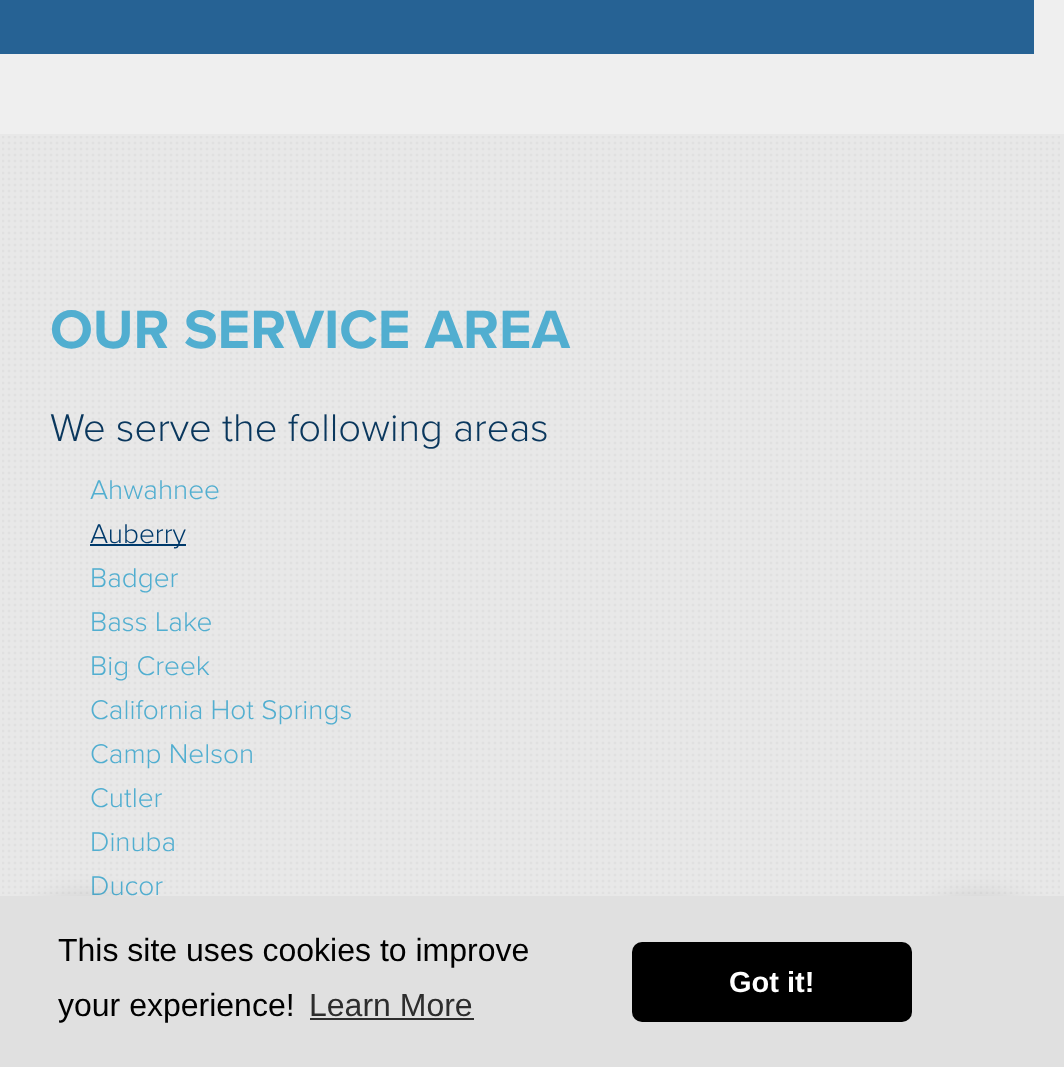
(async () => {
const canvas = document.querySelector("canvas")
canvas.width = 1064
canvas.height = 1067
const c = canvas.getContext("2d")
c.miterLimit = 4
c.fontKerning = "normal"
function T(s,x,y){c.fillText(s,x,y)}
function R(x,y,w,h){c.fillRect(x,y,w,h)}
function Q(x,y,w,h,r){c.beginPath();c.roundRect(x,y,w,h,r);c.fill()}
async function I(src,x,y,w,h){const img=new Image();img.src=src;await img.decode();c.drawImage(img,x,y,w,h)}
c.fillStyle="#efefef"
R(0,0,1064,1067)
c.fillStyle="#266294"
R(0,0,1034,54)
c.fillStyle="#e8e8e8"
R(0,134,1064,762)
await I("1.png",2,136,1058,758)
c.font="bold 56px Proxima Nova"
c.fillStyle="#51aed0"
T("OUR SERVICE AREA",50,348)
c.font="300 40px Proxima Nova"
c.fillStyle="#0a375d"
T("We serve the following areas",50,441)
c.font="300 28px Proxima Nova"
c.fillStyle="#51aed0"
T("Ahwahnee",90,499)
c.fillStyle="#003a6b"
R(90,544,96,2)
T("Auberry",90,543)
c.fillStyle="#51aed0"
T("Badger",90,587)
T("Bass Lake",90,631)
T("Big Creek",90,675)
T("California Hot Springs",90,719)
T("Camp Nelson",90,763)
T("Cutler",90,807)
T("Dinuba",90,851)
T("Ducor",90,895)
c.fillStyle="#00000033"
c.filter="blur(15px)"
c.beginPath()
c.roundRect(6,904,158,158,79)
c.fill()
c.filter="none"
c.filter="blur(15px)"
c.beginPath()
c.roundRect(900,904,158,158,79)
c.fill()
c.filter="none"
c.fillStyle="#e0e0e0"
R(0,896,1064,171)
c.font="32px Liberation Sans"
c.fillStyle="#000"
T("This site uses cookies to improve",58,961)
T("your experience!",58,1016)
c.fillStyle="#2d2d2d"
T("Learn More",309,1016)
R(310,1018,164,2)
c.fillStyle="#000"
Q(632,942,280,80,10)
c.font="bold 29px Liberation Sans"
c.fillStyle="#fff"
T("Got it!",729,992)
})()
